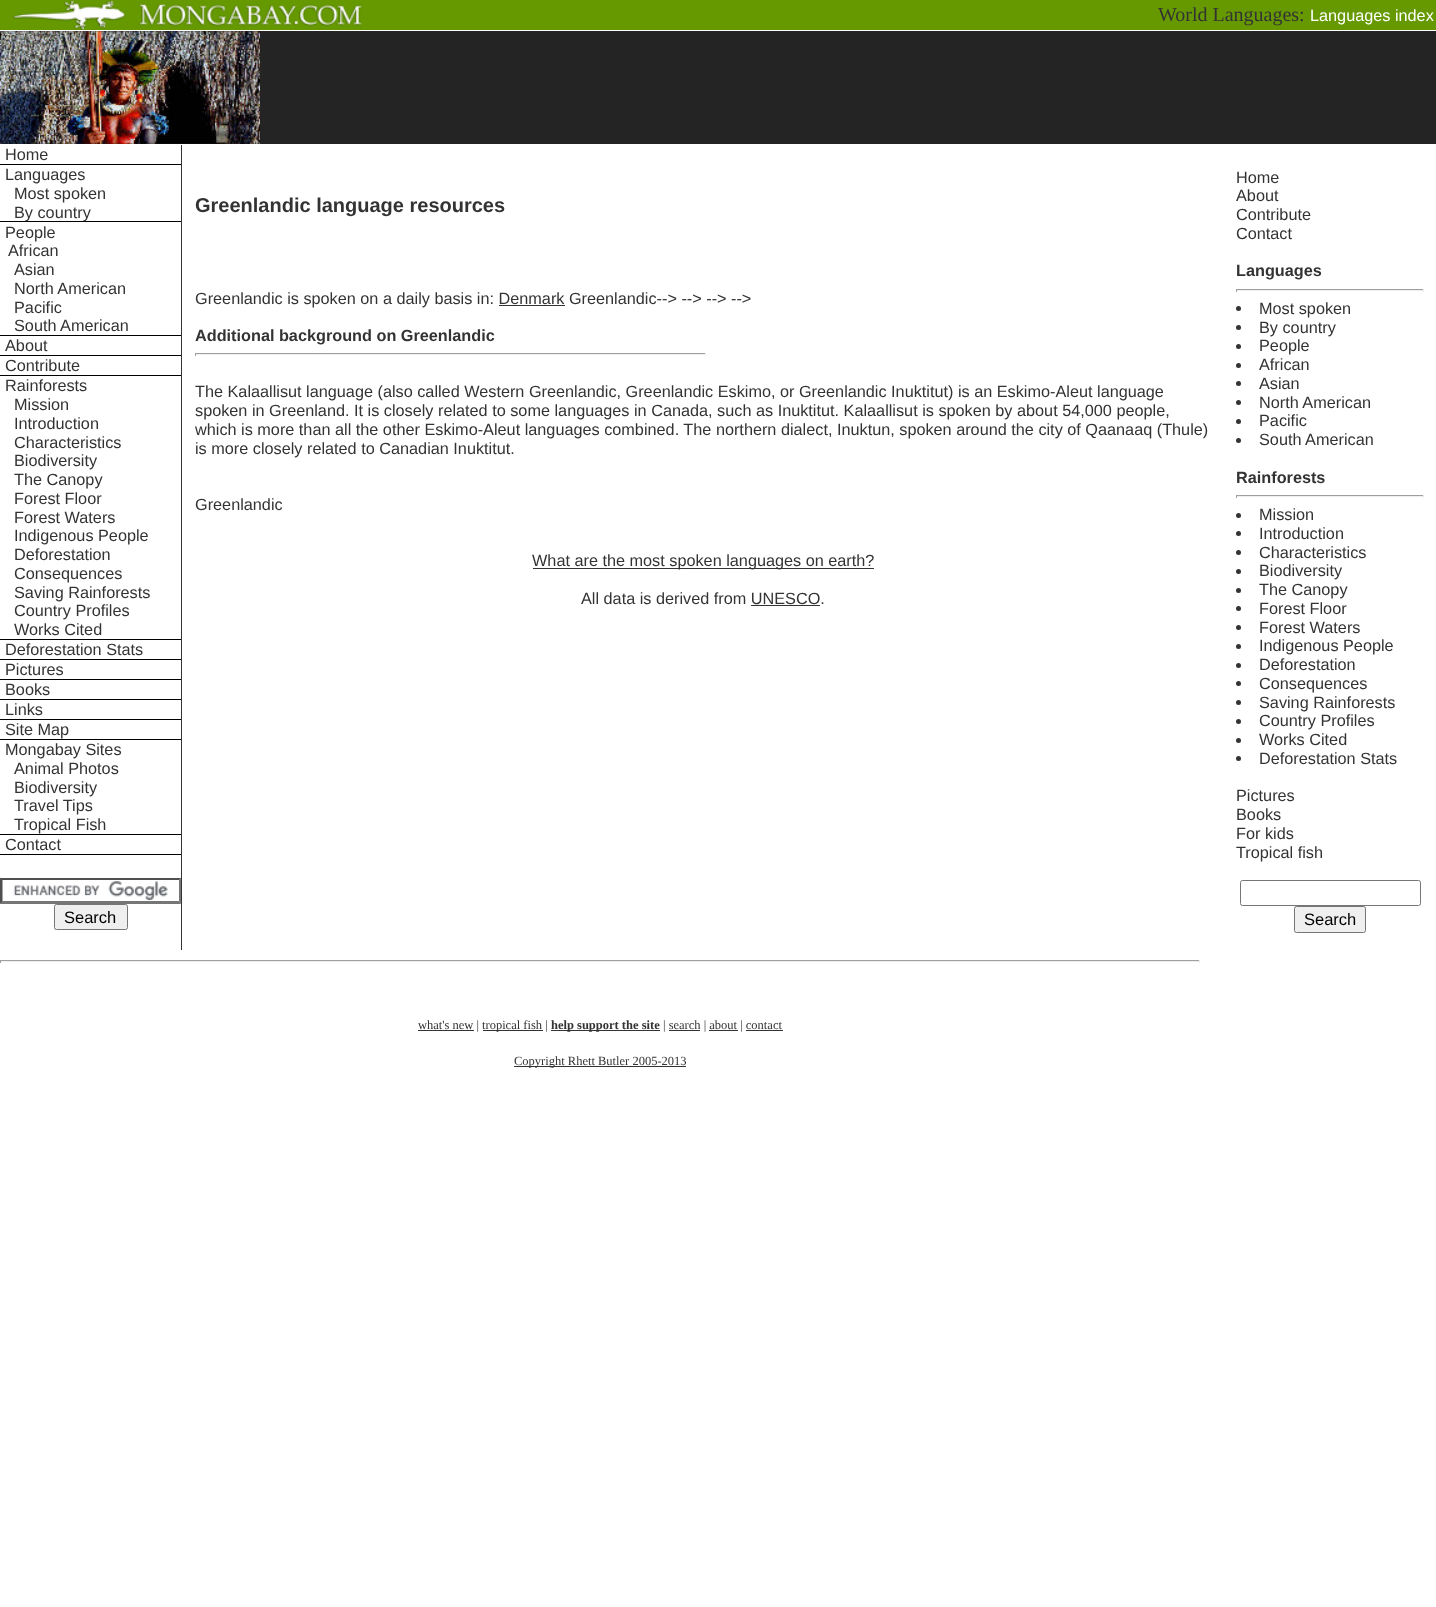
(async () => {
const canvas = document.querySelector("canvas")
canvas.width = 1436
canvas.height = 1607
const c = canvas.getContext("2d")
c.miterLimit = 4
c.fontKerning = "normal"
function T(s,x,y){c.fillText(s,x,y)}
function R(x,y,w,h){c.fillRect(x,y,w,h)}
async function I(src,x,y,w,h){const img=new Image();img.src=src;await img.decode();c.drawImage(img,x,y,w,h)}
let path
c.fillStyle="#fff"
R(0,0,1436,1607)
c.fillStyle="#690"
R(0,0,1436,30)
await I("1.png",12,0,350,30)
c.font="20px Liberation Serif"
c.fillStyle="#333"
T("World Languages:",1158,21)
c.font="16.25px Liberation Sans"
c.fillStyle="#fff"
T("Languages index",1310,21)
c.fillStyle="#242424"
R(0,31,1436,113)
await I("2.png",0,31,260,113)
c.fillStyle="#333"
T("Home",5,160)
c.fillStyle="#000"
R(0,164,181,1)
c.fillStyle="#333"
T("Languages",5,180)
T("Most spoken",14,199)
c.fillStyle="#000"
R(0,221,181,1)
c.fillStyle="#333"
T("By country",14,218)
T("People",5,238)
T("African",8,256)
T("Asian",14,275)
T("North American",14,294)
T("Pacific",14,313)
T("South American",14,331)
c.fillStyle="#000"
R(0,335,181,1)
c.fillStyle="#333"
T("About",5,351)
c.fillStyle="#000"
R(0,355,181,1)
c.fillStyle="#333"
T("Contribute",5,371)
c.fillStyle="#000"
R(0,375,181,1)
c.fillStyle="#333"
T("Rainforests",5,391)
T("Mission",14,410)
T("Introduction",14,429)
T("Characteristics",14,448)
T("Biodiversity",14,466)
T("The Canopy",14,485)
T("Forest Floor",14,504)
T("Forest Waters",14,523)
T("Indigenous People",14,541)
T("Deforestation",14,560)
T("Consequences",14,579)
T("Saving Rainforests",14,598)
T("Country Profiles",14,616)
T("Works Cited",14,635)
c.fillStyle="#000"
R(0,639,181,1)
c.fillStyle="#333"
T("Deforestation Stats",5,655)
c.fillStyle="#000"
R(0,659,181,1)
c.fillStyle="#333"
T("Pictures",5,675)
c.fillStyle="#000"
R(0,679,181,1)
c.fillStyle="#333"
T("Books",5,695)
c.fillStyle="#000"
R(0,699,181,1)
c.fillStyle="#333"
T("Links",5,715)
c.fillStyle="#000"
R(0,719,181,1)
c.fillStyle="#333"
T("Site Map",5,735)
c.fillStyle="#000"
R(0,739,181,1)
c.fillStyle="#333"
T("Mongabay Sites",5,755)
T("Animal Photos",14,774)
T("Biodiversity",14,793)
T("Travel Tips",14,811)
T("Tropical Fish",14,830)
c.fillStyle="#000"
R(0,834,181,1)
c.fillStyle="#333"
T("Contact",5,850)
c.fillStyle="#000"
R(0,854,181,1)
await I("3.png",13,881,155,19)
c.fillStyle="#4f4f4f"
path = new Path2D("M0 878h181l-2 2h-177z")
c.fill(path)
c.fillStyle="#767676"
path = new Path2D("M181 877.5v26.5l-2-3v-21z")
c.fill(path)
path = new Path2D("M181 904h-181l2-3h177z")
c.fill(path)
c.fillStyle="#4f4f4f"
path = new Path2D("M0 904v-26.5l2.5 2.5v21z")
c.fill(path)
c.fillStyle="#efefef"
c.beginPath()
c.roundRect(54.5,904.5,73,25,2)
c.fill()
c.strokeStyle="#767676"
c.stroke()
c.font="16.5px Liberation Sans"
c.fillStyle="#000"
T("Search",64,923)
c.fillStyle="#333"
R(181,145,1,805)
c.font="bold 20px Liberation Sans"
T("Greenlandic language resources",195,212)
c.font="16.25px Liberation Sans"
T("Greenlandic is spoken on a daily basis in: Denmark Greenlandic--> --> --> -->",195,304)
R(499,305,66,1)
c.font="bold 16.25px Liberation Sans"
T("Additional background on Greenlandic",195,341)
c.fillStyle="#9f9f9f"
R(195,353,511,1)
c.fillStyle="#eee"
R(705,353,1,3)
R(195,354,511,1)
c.fillStyle="#9f9f9f"
R(195,353,1,3)
c.font="16.25px Liberation Sans"
c.fillStyle="#333"
T("The Kalaallisut language (also called Western Greenlandic, Greenlandic Eskimo, or Greenlandic Inuktitut) is an Eskimo-Aleut language",195,397)
T("spoken in Greenland. It is closely related to some languages in Canada, such as Inuktitut. Kalaallisut is spoken by about 54,000 people,",195,416)
T("which is more than all the other Eskimo-Aleut languages combined. The northern dialect, Inuktun, spoken around the city of Qaanaaq (Thule)",195,435)
T("is more closely related to Canadian Inuktitut.",195,454)
T("Greenlandic",195,510)
R(533,568,341,1)
T("What are the most spoken languages on earth?",532,566)
T("All data is derived from UNESCO.",581,604)
R(751,605,69,1)
T("Home",1236,183)
T("About",1236,201)
T("Contribute",1236,220)
T("Contact",1236,239)
c.font="bold 16.25px Liberation Sans"
T("Languages",1236,276)
c.fillStyle="#9f9f9f"
R(1236,289,188,1)
c.fillStyle="#eee"
R(1423,289,1,3)
R(1236,290,188,1)
c.fillStyle="#9f9f9f"
R(1236,289,1,3)
c.fillStyle="#333"
c.beginPath()
c.arc(1238.5,308.5,2.5,0,7)
c.fill()
c.font="16.25px Liberation Sans"
T("Most spoken",1259,314)
c.beginPath()
c.arc(1238.5,327.5,2.5,0,7)
c.fill()
T("By country",1259,333)
c.beginPath()
c.arc(1238.5,346.5,2.5,0,7)
c.fill()
T("People",1259,351)
c.beginPath()
c.arc(1238.5,365.5,2.5,0,7)
c.fill()
T("African",1259,370)
c.beginPath()
c.arc(1238.5,383.5,2.5,0,7)
c.fill()
T("Asian",1259,389)
c.beginPath()
c.arc(1238.5,402.5,2.5,0,7)
c.fill()
T("North American",1259,408)
c.beginPath()
c.arc(1238.5,421.5,2.5,0,7)
c.fill()
T("Pacific",1259,426)
c.beginPath()
c.arc(1238.5,440.5,2.5,0,7)
c.fill()
T("South American",1259,445)
c.font="bold 16.25px Liberation Sans"
T("Rainforests",1236,483)
c.fillStyle="#9f9f9f"
R(1236,495,188,1)
c.fillStyle="#eee"
R(1423,495,1,3)
R(1236,496,188,1)
c.fillStyle="#9f9f9f"
R(1236,495,1,3)
c.fillStyle="#333"
c.beginPath()
c.arc(1238.5,515.5,2.5,0,7)
c.fill()
c.font="16.25px Liberation Sans"
T("Mission",1259,520)
c.beginPath()
c.arc(1238.5,533.5,2.5,0,7)
c.fill()
T("Introduction",1259,539)
c.beginPath()
c.arc(1238.5,552.5,2.5,0,7)
c.fill()
T("Characteristics",1259,558)
c.beginPath()
c.arc(1238.5,571.5,2.5,0,7)
c.fill()
T("Biodiversity",1259,576)
c.beginPath()
c.arc(1238.5,590.5,2.5,0,7)
c.fill()
T("The Canopy",1259,595)
c.beginPath()
c.arc(1238.5,608.5,2.5,0,7)
c.fill()
T("Forest Floor",1259,614)
c.beginPath()
c.arc(1238.5,627.5,2.5,0,7)
c.fill()
T("Forest Waters",1259,633)
c.beginPath()
c.arc(1238.5,646.5,2.5,0,7)
c.fill()
T("Indigenous People",1259,651)
c.beginPath()
c.arc(1238.5,665.5,2.5,0,7)
c.fill()
T("Deforestation",1259,670)
c.beginPath()
c.arc(1238.5,683.5,2.5,0,7)
c.fill()
T("Consequences",1259,689)
c.beginPath()
c.arc(1238.5,702.5,2.5,0,7)
c.fill()
T("Saving Rainforests",1259,708)
c.beginPath()
c.arc(1238.5,721.5,2.5,0,7)
c.fill()
T("Country Profiles",1259,726)
c.beginPath()
c.arc(1238.5,740.5,2.5,0,7)
c.fill()
T("Works Cited",1259,745)
c.beginPath()
c.arc(1238.5,758.5,2.5,0,7)
c.fill()
T("Deforestation Stats",1259,764)
T("Pictures",1236,801)
T("Books",1236,820)
T("For kids",1236,839)
T("Tropical fish",1236,858)
c.beginPath()
c.roundRect(1240.5,880.5,180,25,2)
c.stroke()
c.fillStyle="#efefef"
c.beginPath()
c.roundRect(1294.5,906.5,71,26,2)
c.fill()
c.stroke()
c.font="16.5px Liberation Sans"
c.fillStyle="#000"
T("Search",1304,925)
c.fillStyle="#9f9f9f"
R(0,960,1200,1)
c.fillStyle="#eee"
R(1199,960,1,3)
R(0,961,1200,1)
c.fillStyle="#9f9f9f"
R(0,960,1,3)
c.fillStyle="#333"
R(418,1030,56,1)
c.font="12.5px Liberation Serif"
T("what's new |",418,1029)
R(483,1030,60,1)
T("tropical fish |",482,1029)
R(551,1030,109,1)
c.font="bold 12.5px Liberation Serif"
T("help support the site",551,1029)
c.font="12.5px Liberation Serif"
T("| search | about | contact",663,1029)
R(669,1030,31,1)
R(709,1030,29,1)
R(746,1030,37,1)
R(514,1066,172,1)
T("Copyright Rhett Butler 2005-2013",514,1065)
})()
